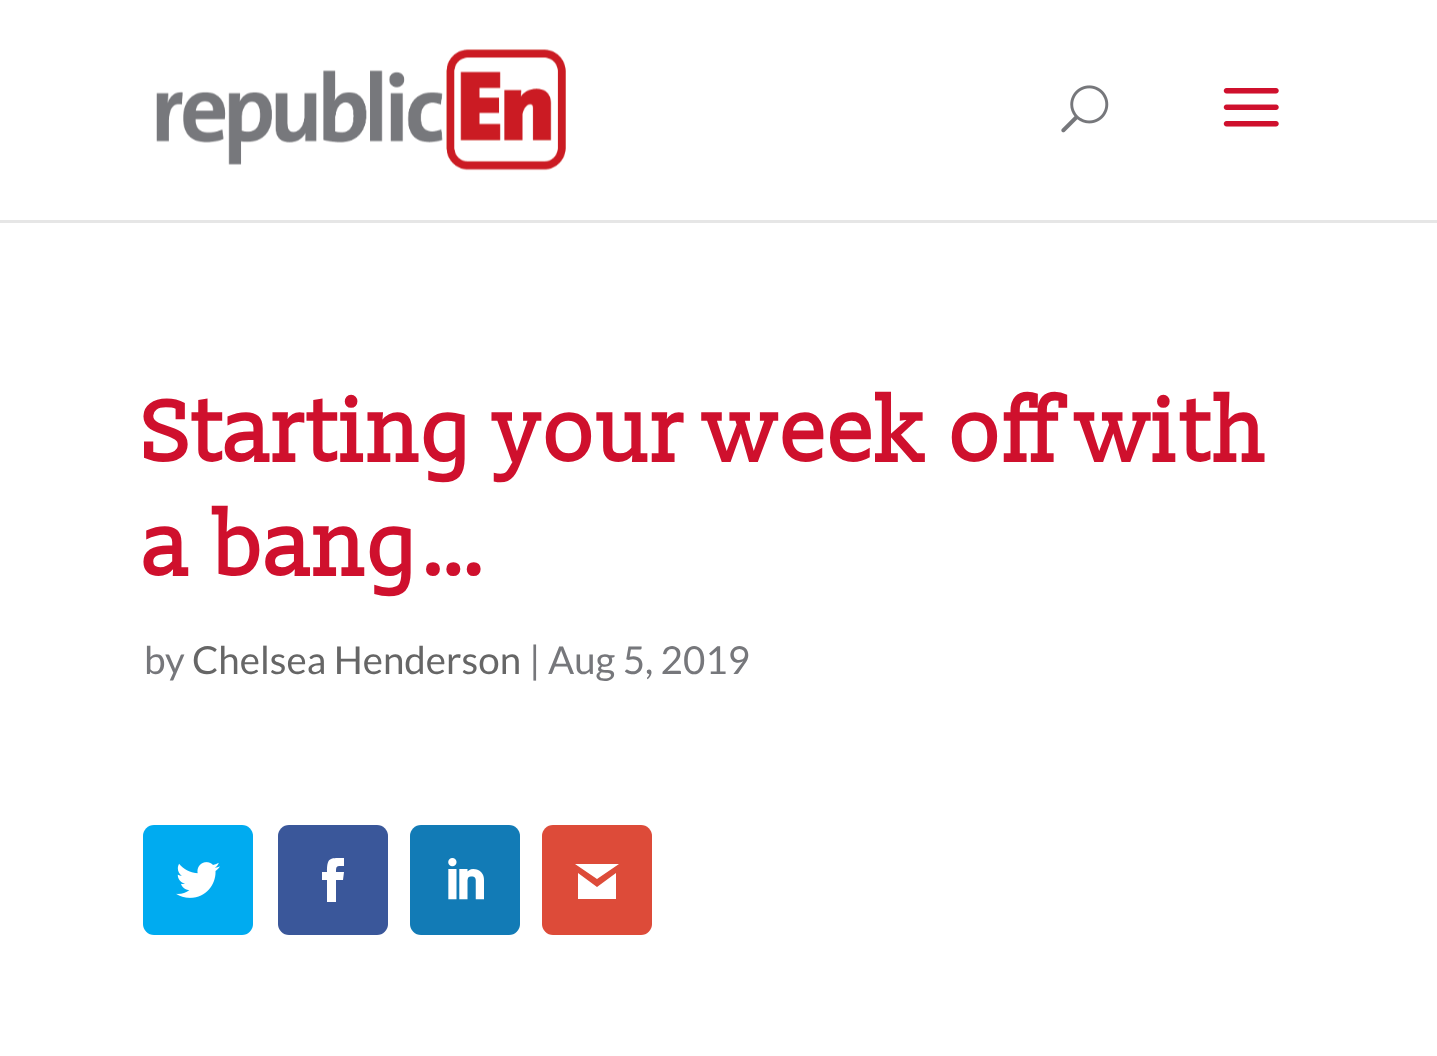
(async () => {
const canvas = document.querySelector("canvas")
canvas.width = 1437
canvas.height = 1056
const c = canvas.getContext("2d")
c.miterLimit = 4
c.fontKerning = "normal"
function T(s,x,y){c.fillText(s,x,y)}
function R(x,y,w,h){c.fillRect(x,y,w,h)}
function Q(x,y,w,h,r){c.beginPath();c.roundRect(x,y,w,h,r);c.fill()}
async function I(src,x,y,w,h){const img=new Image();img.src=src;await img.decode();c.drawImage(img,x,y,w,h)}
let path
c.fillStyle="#fff"
R(0,0,1437,1056)
c.fillStyle="#e6e6e6"
R(0,220,1437,3)
await I("1.png",156,49,410,122)
await I("2.png",1061,85,48,48)
await I("3.png",1223,88,56,39)
c.font="bold 88px 'Slabo 13px'"
c.fillStyle="#cf102d"
T("Starting your week off with",144,462)
T("a bang…",144,576)
c.font="38.5px Lato"
c.fillStyle="#76777b"
T("by",144,674)
c.fillStyle="#666"
T("Chelsea Henderson",192,674)
c.fillStyle="#76777b"
T("| Aug 5, 2019",529,674)
c.fillStyle="#00abf0"
Q(143,825,110,110,11)
await I("4.png",176,862,44,36)
c.fillStyle="#3a579a"
Q(278,825,110,110,11)
c.fillStyle="#fff"
path = new Path2D("M336 902h-9v-22h-5v-8h5c0-15 3-14 17-14v8c-7 0-8-1-8 6h8l-1 8h-7z")
c.fill(path)
c.fillStyle="#127bb6"
Q(410,825,110,110,11)
await I("5.png",448,858,36,42)
c.fillStyle="#dd4b39"
Q(542,825,110,110,11)
c.fillStyle="#fff"
path = new Path2D("M619 864h-44l22 15zm-22 23l-19-14v26h38v-26z")
c.fill(path)
})()
